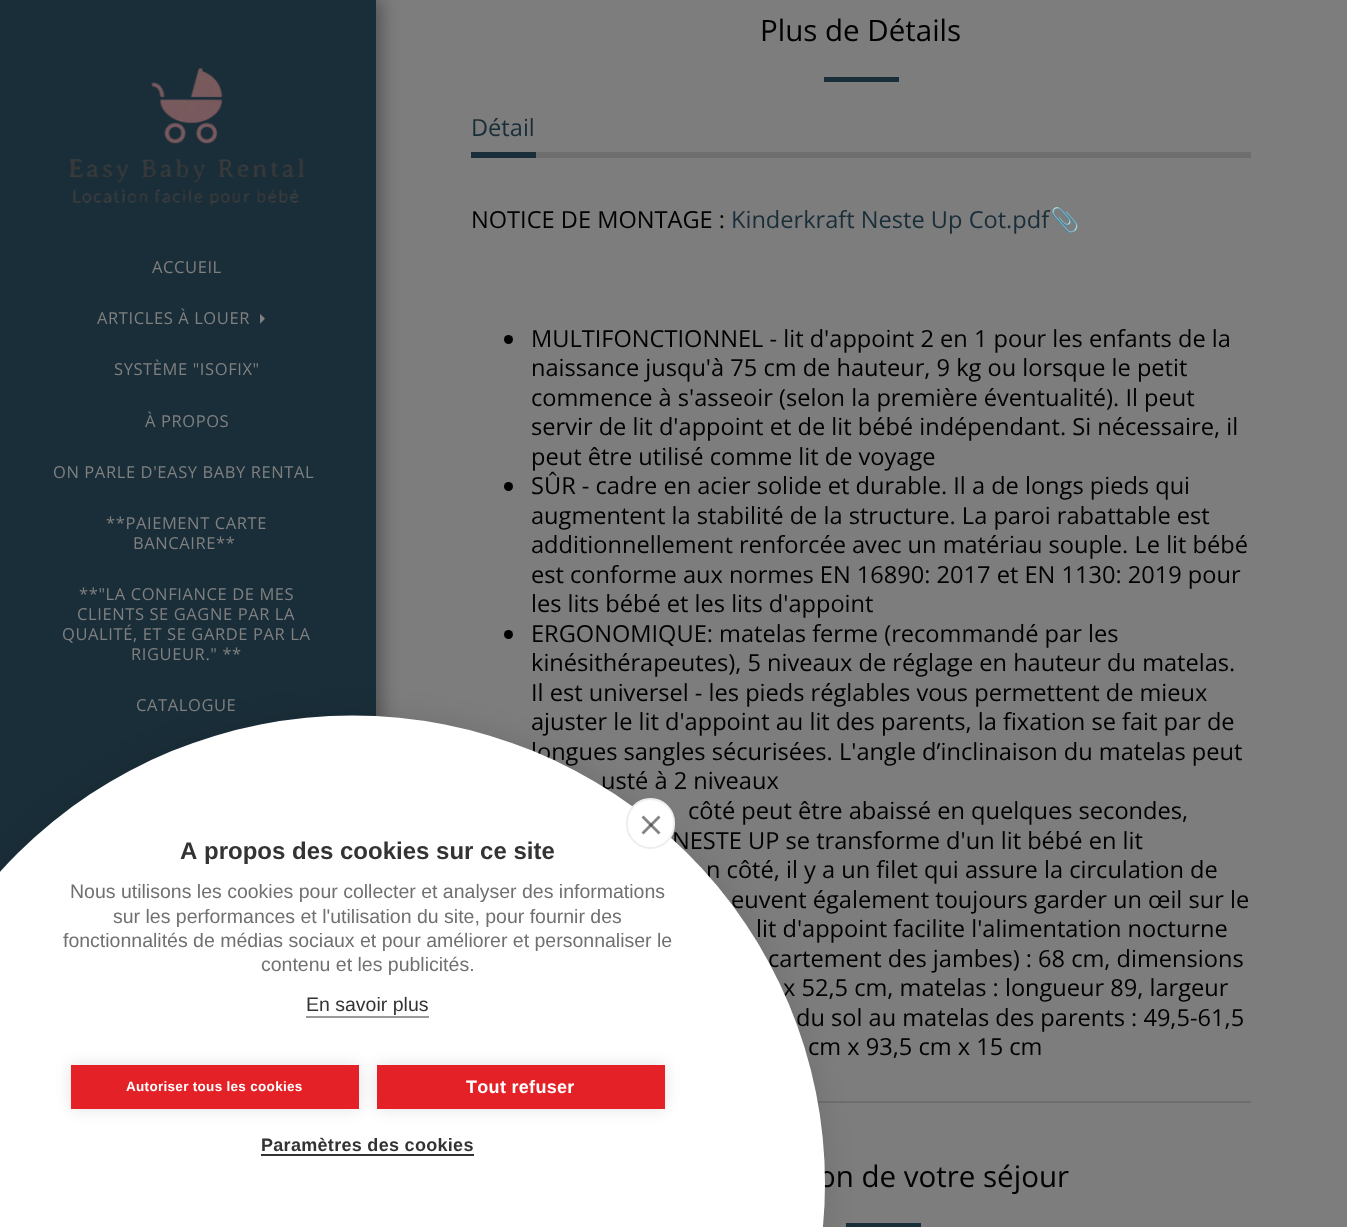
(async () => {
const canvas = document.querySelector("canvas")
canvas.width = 1347
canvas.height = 1227
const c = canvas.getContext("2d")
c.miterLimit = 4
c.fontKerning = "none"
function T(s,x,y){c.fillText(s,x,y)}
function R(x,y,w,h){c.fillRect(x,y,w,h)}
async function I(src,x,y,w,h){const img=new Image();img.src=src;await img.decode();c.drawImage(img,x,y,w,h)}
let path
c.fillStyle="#7d7d7d"
R(0,0,1347,1227)
c.fillStyle="#00000059"
c.filter="blur(9px)"
c.beginPath()
c.rect(0,-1,381,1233)
c.fill()
c.filter="none"
c.fillStyle="#1a2e39"
R(0,0,374,872)
R(374,0,2,717)
await I("1.png",69,67,235,139)
c.letterSpacing="0.6px"
c.font="16.5px Open Sans"
c.fillStyle="#808080"
T("ACCUEIL",152,273)
T("ARTICLES À LOUER",97,324)
await I("2.png",260,314,5,10)
T("SYSTÈME \"ISOFIX\"",114,375)
T("À PROPOS",145,427)
T("ON PARLE D'EASY BABY RENTAL",53,478)
T("**PAIEMENT CARTE",106,529)
T("BANCAIRE**",133,549)
T("**\"LA CONFIANCE DE MES",79,600)
T("CLIENTS SE GAGNE PAR LA",77,620)
T("QUALITÉ, ET SE GARDE PAR LA",62,640)
T("RIGUEUR.\" **",131,660)
T("CATALOGUE",136,711)
c.letterSpacing="0px"
c.font="29.5px Open Sans"
c.fillStyle="#000"
T("Plus de Détails",760,41)
c.fillStyle="#1a2e39"
R(824,77,75,5)
c.fillStyle="#6e6e6e"
R(536,152,715,6)
c.fillStyle="#1a2e39"
R(471,152,65,6)
c.font="23.6px Open Sans"
T("Détail",471,136)
c.fillStyle="#6e6e6e"
R(817,1101,434,2)
c.fillStyle="#000"
T("NOTICE DE MONTAGE :",471,228)
c.fillStyle="#1a2e39"
T("Kinderkraft Neste Up Cot.pdf",731,228)
c.font="23.6px Noto Color Emoji"
T("📎",1050,228)
c.fillStyle="#000"
c.beginPath()
c.arc(508.5,339.5,4.5,0,7)
c.fill()
c.font="23.6px Open Sans"
T("MULTIFONCTIONNEL - lit d'appoint 2 en 1 pour les enfants de la",531,347)
T("naissance jusqu'à 75 cm de hauteur, 9 kg ou lorsque le petit",531,376)
T("commence à s'asseoir (selon la première éventualité). Il peut",531,406)
T("servir de lit d'appoint et de lit bébé indépendant. Si nécessaire, il",531,435)
T("peut être utilisé comme lit de voyage",531,465)
c.beginPath()
c.arc(508.5,486.5,4.5,0,7)
c.fill()
T("SÛR - cadre en acier solide et durable. Il a de longs pieds qui",531,494)
T("augmentent la stabilité de la structure. La paroi rabattable est",531,524)
T("additionnellement renforcée avec un matériau souple. Le lit bébé",531,553)
T("est conforme aux normes EN 16890: 2017 et EN 1130: 2019 pour",531,583)
T("les lits bébé et les lits d'appoint",531,612)
c.beginPath()
c.arc(508.5,634.5,4.5,0,7)
c.fill()
T("ERGONOMIQUE: matelas ferme (recommandé par les",531,642)
T("kinésithérapeutes), 5 niveaux de réglage en hauteur du matelas.",531,671)
T("Il est universel - les pieds réglables vous permettent de mieux",531,701)
T("ajuster le lit d'appoint au lit des parents, la fixation se fait par de",531,730)
T("longues sangles sécurisées. L'angle d’inclinaison du matelas peut",531,760)
T("usté à 2 niveaux",601,789)
T("côté peut être abaissé en quelques secondes,",688,819)
T("NESTE UP se transforme d'un lit bébé en lit",672,849)
T("n côté, il y a un filet qui assure la circulation de",706,878)
T("euvent également toujours garder un œil sur le",731,908)
T("lit d'appoint facilite l'alimentation nocturne",756,937)
T("cartement des jambes) : 68 cm, dimensions",768,967)
T("x 52,5 cm, matelas : longueur 89, largeur",783,996)
T("du sol au matelas des parents : 49,5-61,5",796,1026)
T("cm x 93,5 cm x 15 cm",808,1055)
c.font="29.5px Open Sans"
T("on de votre séjour",818,1187)
c.fillStyle="#1a2e39"
R(846,1223,75,4)
c.fillStyle="#0000001a"
c.filter="blur(15px)"
c.beginPath()
c.roundRect(-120,716,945,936,468)
c.fill()
c.filter="none"
c.fillStyle="#fff"
c.beginPath()
c.ellipse(352.5,1183.5,472.5,468,0,0,7)
c.fill()
c.beginPath()
c.roundRect(627,799,47,49,23.5)
c.fill()
c.strokeStyle="#eee"
c.lineWidth=2
c.stroke()
c.fillStyle="#858585"
path = new Path2D("M641.5 832.5l17-17l2 2l-17 17z")
c.fill(path)
c.fillStyle="#33333399"
path = new Path2D("M643.5 815.5l17 17l-2 2l-17-17z")
c.fill(path)
c.font="bold 24px Liberation Sans"
c.fillStyle="#333"
T("A propos des cookies sur ce site",180,859)
c.font="19.5px Liberation Sans"
c.fillStyle="#707070"
T("Nous utilisons les cookies pour collecter et analyser des informations",70,898)
T("sur les performances et l'utilisation du site, pour fournir des",113,923)
T("fonctionnalités de médias sociaux et pour améliorer et personnaliser le",63,947)
T("contenu et les publicités.",261,971)
c.fillStyle="#333"
T("En savoir plus",306,1011)
c.fillStyle="#999"
R(306,1016,123,2)
c.fillStyle="#0000001f"
c.filter="blur(7.5px)"
c.beginPath()
c.rect(71,1065,288,44)
c.fill()
c.filter="none"
c.fillStyle="#e42127"
R(71,1065,288,44)
c.letterSpacing="0.3px"
c.font="bold 13.5px Liberation Sans"
c.fillStyle="#fff"
T("Autoriser tous les cookies",126,1091)
c.fillStyle="#0000001f"
c.filter="blur(7.5px)"
c.beginPath()
c.rect(377,1065,288,44)
c.fill()
c.filter="none"
c.fillStyle="#e42127"
R(377,1065,288,44)
c.font="bold 18px Liberation Sans"
c.fillStyle="#fff"
T("Tout refuser",466,1093)
c.fillStyle="#333"
T("Paramètres des cookies",261,1151)
R(261,1154,213,2)
})()
